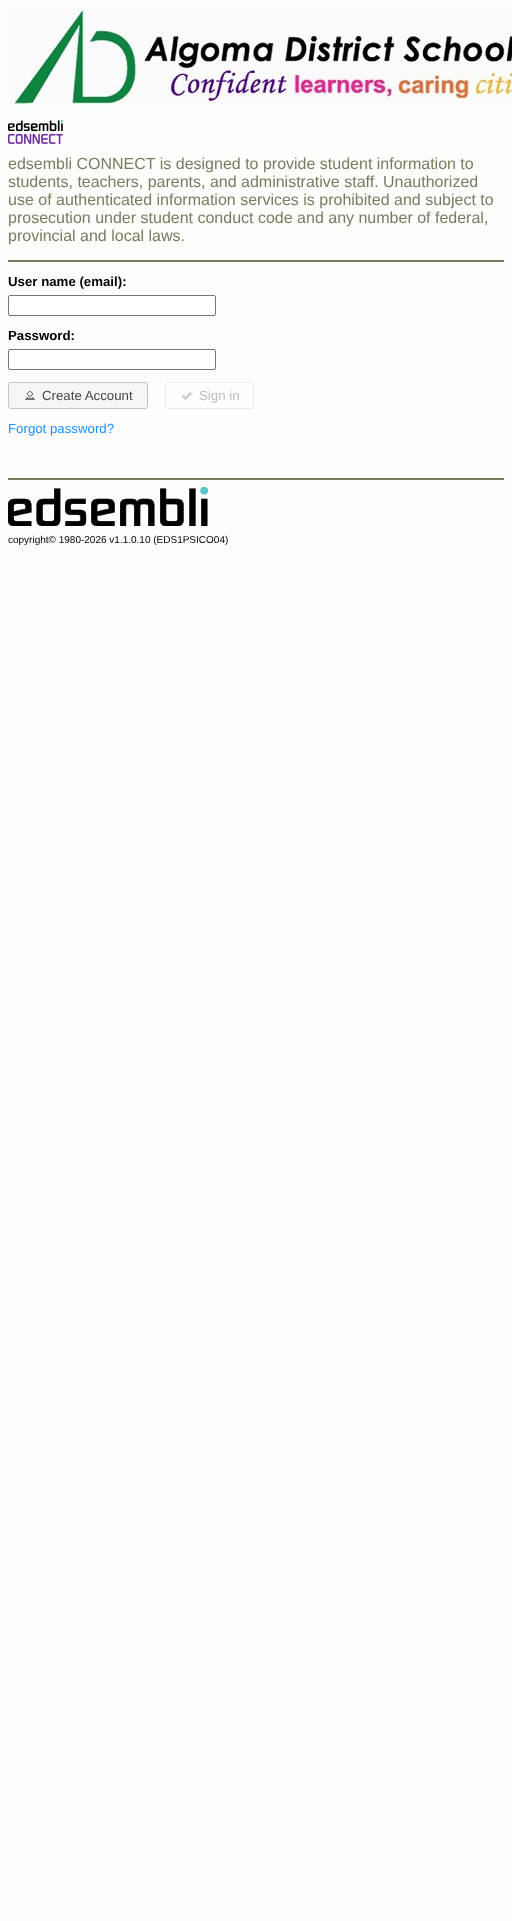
(async () => {
const canvas = document.querySelector("canvas")
canvas.width = 512
canvas.height = 1921
const c = canvas.getContext("2d")
c.miterLimit = 4
c.fontKerning = "normal"
function T(s,x,y){c.fillText(s,x,y)}
function R(x,y,w,h){c.fillRect(x,y,w,h)}
async function I(src,x,y,w,h){const img=new Image();img.src=src;await img.decode();c.drawImage(img,x,y,w,h)}
c.fillStyle="#fdfdfb"
R(0,0,512,1921)
await I("1.png",8,8,504,97)
await I("2.png",8,120,55,24)
c.font="16px Liberation Sans"
c.fillStyle="#7b7b61"
T("edsembli CONNECT is designed to provide student information to",8,169)
T("students, teachers, parents, and administrative staff. Unauthorized",8,187)
T("use of authenticated information services is prohibited and subject to",8,205)
T("prosecution under student conduct code and any number of federal,",8,223)
T("provincial and local laws.",8,241)
R(8,260,496,2)
c.font="bold 13.25px Liberation Sans"
c.fillStyle="#000"
T("User name (email):",8,286)
c.fillStyle="#fff"
c.beginPath()
c.roundRect(8.5,295.5,207,20,1.5)
c.fill()
c.strokeStyle="#767676"
c.stroke()
c.fillStyle="#000"
T("Password:",8,340)
c.fillStyle="#fff"
c.beginPath()
c.roundRect(8.5,349.5,207,20,1.5)
c.fill()
c.stroke()
c.fillStyle="#f6f6f6"
c.beginPath()
c.roundRect(8.5,382.5,139,26,2.5)
c.fill()
c.strokeStyle="#c5c5c5"
c.stroke()
await I("3.png",25,391,10,9)
c.font="13.25px Liberation Sans"
c.fillStyle="#454545"
T("Create Account",42,400)
c.beginPath()
c.roundRect(165.5,382.5,88,26,2.5)
c.strokeStyle="#e9e9e8"
c.stroke()
await I("4.png",181,391,12,9)
c.fillStyle="#bdbdbb"
T("Sign in",199,400)
c.fillStyle="#1e90ff"
T("Forgot password?",8,433)
c.fillStyle="#7b7b61"
R(8,478,496,2)
await I("5.png",8,487,200,39)
c.font="10px Liberation Sans"
c.fillStyle="#000"
T("copyright© 1980-2026 v1.1.0.10 (EDS1PSICO04)",8,543)
})()
